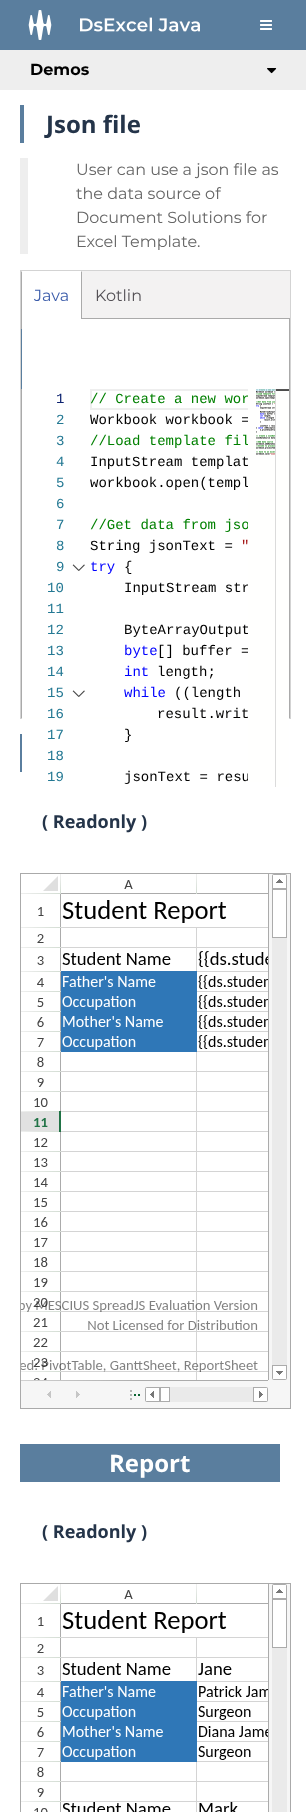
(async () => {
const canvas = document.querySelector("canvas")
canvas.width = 306
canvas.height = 1812
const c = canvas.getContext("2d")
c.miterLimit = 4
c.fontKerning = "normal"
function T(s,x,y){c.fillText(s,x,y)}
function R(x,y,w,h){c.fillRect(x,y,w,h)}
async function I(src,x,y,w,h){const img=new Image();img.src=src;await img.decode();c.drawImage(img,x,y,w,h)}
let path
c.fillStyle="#fff"
R(0,0,306,1812)
c.fillStyle="#5a7e9e"
R(0,0,306,50)
await I("1.png",28,10,24,30)
await I("2.png",80,17,120,15)
await I("3.png",260,20,12,10)
c.fillStyle="#eee"
R(0,50,306,40)
c.font="bold 16px Montserrat"
c.fillStyle="#000"
T("Demos",30,75)
await I("4.png",267,68,10,6)
c.fillStyle="#5a7e9e"
R(20,105,4,38)
c.font="bold 24px Open Sans"
c.fillStyle="#243449"
T("Json file",46,133)
c.fillStyle="#eee"
R(20,158,8,96)
c.font="16px Montserrat"
c.fillStyle="#666"
T("User can use a json file as",76,175)
T("the data source of",76,199)
T("Document Solutions for",76,223)
T("Excel Template.",76,247)
c.strokeStyle="#d3d3d3"
c.strokeRect(20.5,270.5,270,448)
c.fillStyle="#f3f2f2"
R(82,271,208,47)
c.strokeStyle="#aaa"
c.strokeRect(21.5,318.5,268,399)
c.fillStyle="#fff"
R(21,318,61,1)
c.fillStyle="#aaa"
path = new Path2D("M82 271v48h-1v-47zm-61 48v-48l1 1v47z")
c.fill(path)
c.fillStyle="#3b5caa"
T("Java",34,301)
c.fillStyle="#555257"
T("Kotlin",95,301)
c.fillStyle="#5a7e9e"
R(21,329,1,60)
c.fillStyle="#fffffe"
R(22,717,253,2)
c.font="14px Liberation Mono"
c.fillStyle="#0b216f"
T("1",56,403)
c.fillStyle="#237893"
T("2",56,424)
T("3",56,445)
T("4",56,466)
T("5",56,487)
T("6",56,508)
T("7",56,529)
T("8",56,550)
T("9",56,571)
await I("5.png",72,564,13,7)
T("10",47,592)
T("11",47,613)
T("12",47,634)
T("13",47,655)
T("14",47,676)
T("15",47,697)
await I("5.png",72,690,13,7)
T("16",47,718)
T("17",47,739)
T("18",47,760)
T("19",47,781)
c.save()
c.beginPath()
c.rect(90,389,199,398)
c.clip()
c.strokeStyle="#eee"
c.lineWidth=2
c.strokeRect(91,390,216,19)
c.restore()
c.fillStyle="#008000"
T("// Create a new wor",90,403)
c.fillStyle="#000"
T("Workbook workbook =",90,424)
c.fillStyle="#008000"
T("//Load template fil",90,445)
c.fillStyle="#000"
T("InputStream templat",90,466)
T("workbook.open(templ",90,487)
c.fillStyle="#008000"
T("//Get data from jso",90,529)
c.fillStyle="#000"
T("String jsonText =",90,550)
c.fillStyle="#a31515"
T("\"",241,550)
c.fillStyle="#00f"
T("try",90,571)
c.fillStyle="#000"
T("{",124,571)
T("InputStream str",124,592)
T("ByteArrayOutput",124,634)
c.fillStyle="#00f"
T("byte",124,655)
c.fillStyle="#000"
T("[] buffer =",157,655)
c.fillStyle="#00f"
T("int",124,676)
c.fillStyle="#000"
T("length;",157,676)
c.fillStyle="#00f"
T("while",124,697)
c.fillStyle="#000"
T("((length",174,697)
T("result.writ",157,718)
T("}",124,739)
T("jsonText = resu",124,781)
await I("6.png",275,389,14,398)
await I("7.png",248,389,27,393)
c.fillStyle="#add5ff80"
R(256,389,19,2)
c.fillStyle="#5a7e9e"
R(20,734,2,38)
c.font="bold 18px Open Sans"
c.fillStyle="#243449"
T("( Readonly )",42,828)
await I("8.png",20,873,271,536)
c.fillStyle="#5a7e9e"
R(20,1444,260,38)
c.font="bold 24px Open Sans"
c.fillStyle="#fff"
T("Report",109,1472)
c.font="bold 18px Open Sans"
c.fillStyle="#243449"
T("( Readonly )",42,1538)
await I("9.png",20,1583,271,229)
})()
